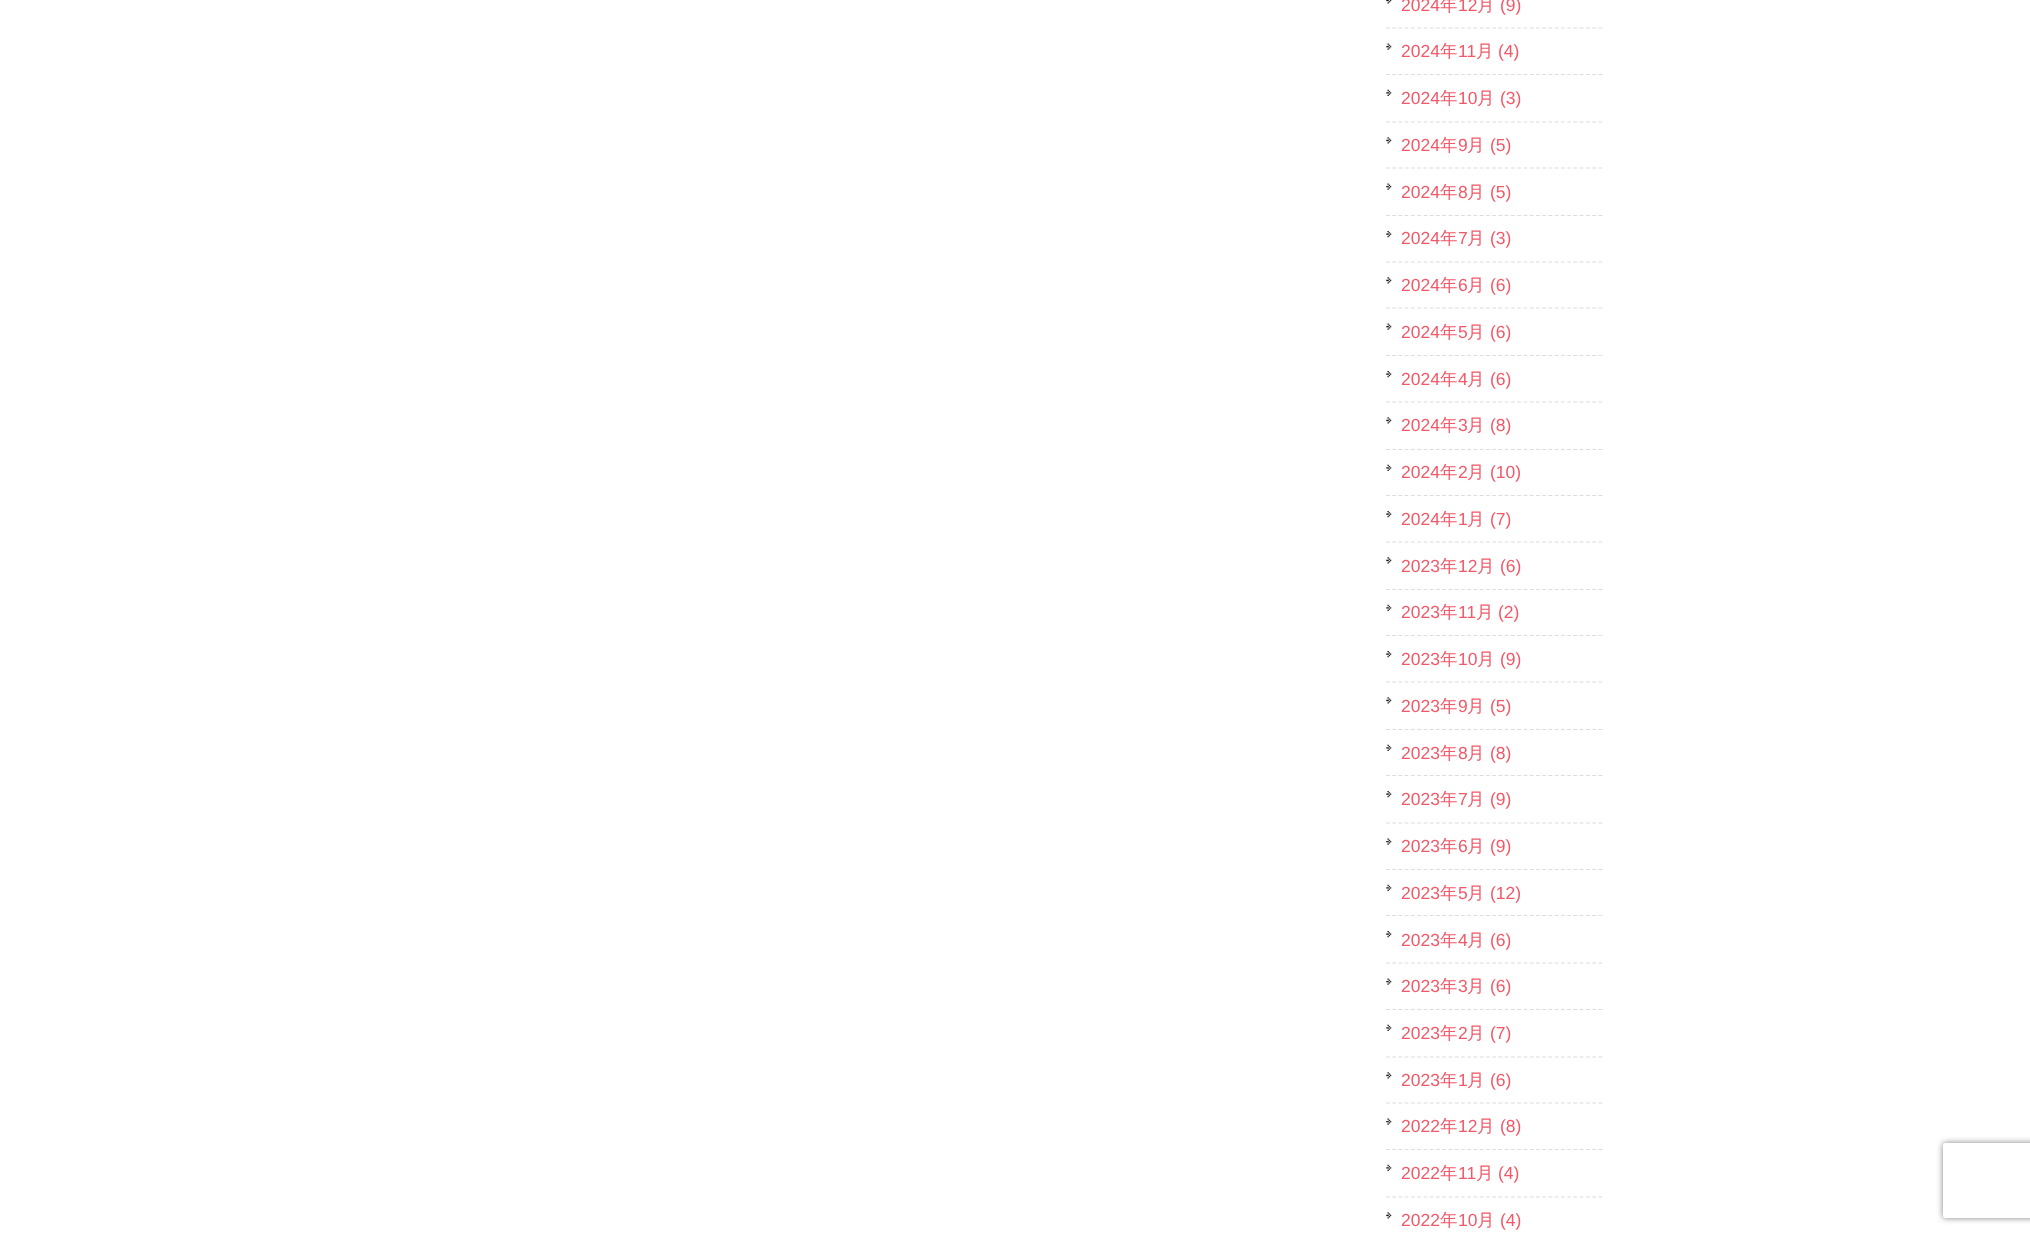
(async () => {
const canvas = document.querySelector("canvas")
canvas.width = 2030
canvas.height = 1234
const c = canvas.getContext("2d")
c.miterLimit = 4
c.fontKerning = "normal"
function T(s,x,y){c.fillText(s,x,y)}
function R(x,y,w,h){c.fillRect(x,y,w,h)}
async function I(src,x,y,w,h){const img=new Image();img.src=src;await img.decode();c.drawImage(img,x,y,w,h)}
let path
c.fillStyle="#fff"
R(0,0,2030,1234)
await I("1.png",1386,0,6,4)
path = new Path2D("M1386 28h216.5")
c.strokeStyle="#dcdcdc"
c.lineWidth=1.2
c.setLineDash([3.75,2.5])
c.stroke(path)
c.font="17.5px Liberation Sans"
c.fillStyle="#f25867"
T("2024",1401,11)
c.font="500 17.5px WenQuanYi Zen Hei"
T("年",1440,11)
c.font="17.5px Liberation Sans"
T("12",1458,11)
c.font="500 17.5px WenQuanYi Zen Hei"
T("月",1477,11)
c.font="17.5px Liberation Sans"
T("(9)",1500,11)
await I("2.png",1386,43,6,7)
path = new Path2D("M1386 74.5h216.5")
c.stroke(path)
T("2024",1401,57)
c.font="500 17.5px WenQuanYi Zen Hei"
T("年",1440,57)
c.font="17.5px Liberation Sans"
T("11",1458,57)
c.font="500 17.5px WenQuanYi Zen Hei"
T("月",1476,57)
c.font="17.5px Liberation Sans"
T("(4)",1498,57)
await I("3.png",1386,89,6,7)
path = new Path2D("M1386 122h216.5")
c.stroke(path)
T("2024",1401,104)
c.font="500 17.5px WenQuanYi Zen Hei"
T("年",1440,104)
c.font="17.5px Liberation Sans"
T("10",1458,104)
c.font="500 17.5px WenQuanYi Zen Hei"
T("月",1477,104)
c.font="17.5px Liberation Sans"
T("(3)",1500,104)
await I("4.png",1386,137,6,7)
path = new Path2D("M1386 168h216.5")
c.stroke(path)
T("2024",1401,151)
c.font="500 17.5px WenQuanYi Zen Hei"
T("年",1440,151)
c.font="17.5px Liberation Sans"
T("9",1458,151)
c.font="500 17.5px WenQuanYi Zen Hei"
T("月",1467,151)
c.font="17.5px Liberation Sans"
T("(5)",1490,151)
await I("2.png",1386,183,6,7)
path = new Path2D("M1386 215.5h216.5")
c.stroke(path)
T("2024",1401,198)
c.font="500 17.5px WenQuanYi Zen Hei"
T("年",1440,198)
c.font="17.5px Liberation Sans"
T("8",1458,198)
c.font="500 17.5px WenQuanYi Zen Hei"
T("月",1467,198)
c.font="17.5px Liberation Sans"
T("(5)",1490,198)
await I("5.png",1386,231,6,7)
path = new Path2D("M1386 262h216.5")
c.stroke(path)
T("2024",1401,244)
c.font="500 17.5px WenQuanYi Zen Hei"
T("年",1440,244)
c.font="17.5px Liberation Sans"
T("7",1458,244)
c.font="500 17.5px WenQuanYi Zen Hei"
T("月",1467,244)
c.font="17.5px Liberation Sans"
T("(3)",1490,244)
await I("4.png",1386,277,6,7)
path = new Path2D("M1386 308h216.5")
c.stroke(path)
T("2024",1401,291)
c.font="500 17.5px WenQuanYi Zen Hei"
T("年",1440,291)
c.font="17.5px Liberation Sans"
T("6",1458,291)
c.font="500 17.5px WenQuanYi Zen Hei"
T("月",1467,291)
c.font="17.5px Liberation Sans"
T("(6)",1490,291)
await I("2.png",1386,323,6,7)
path = new Path2D("M1386 355.5h216.5")
c.stroke(path)
T("2024",1401,338)
c.font="500 17.5px WenQuanYi Zen Hei"
T("年",1440,338)
c.font="17.5px Liberation Sans"
T("5",1458,338)
c.font="500 17.5px WenQuanYi Zen Hei"
T("月",1467,338)
c.font="17.5px Liberation Sans"
T("(6)",1490,338)
await I("5.png",1386,371,6,7)
path = new Path2D("M1386 402h216.5")
c.stroke(path)
T("2024",1401,385)
c.font="500 17.5px WenQuanYi Zen Hei"
T("年",1440,385)
c.font="17.5px Liberation Sans"
T("4",1458,385)
c.font="500 17.5px WenQuanYi Zen Hei"
T("月",1467,385)
c.font="17.5px Liberation Sans"
T("(6)",1490,385)
await I("4.png",1386,417,6,7)
path = new Path2D("M1386 449.5h216.5")
c.stroke(path)
T("2024",1401,431)
c.font="500 17.5px WenQuanYi Zen Hei"
T("年",1440,431)
c.font="17.5px Liberation Sans"
T("3",1458,431)
c.font="500 17.5px WenQuanYi Zen Hei"
T("月",1467,431)
c.font="17.5px Liberation Sans"
T("(8)",1490,431)
await I("3.png",1386,464,6,7)
path = new Path2D("M1386 495.5h216.5")
c.stroke(path)
T("2024",1401,478)
c.font="500 17.5px WenQuanYi Zen Hei"
T("年",1440,478)
c.font="17.5px Liberation Sans"
T("2",1458,478)
c.font="500 17.5px WenQuanYi Zen Hei"
T("月",1467,478)
c.font="17.5px Liberation Sans"
T("(10)",1490,478)
await I("5.png",1386,511,6,7)
path = new Path2D("M1386 542h216.5")
c.stroke(path)
T("2024",1401,525)
c.font="500 17.5px WenQuanYi Zen Hei"
T("年",1440,525)
c.font="17.5px Liberation Sans"
T("1",1458,525)
c.font="500 17.5px WenQuanYi Zen Hei"
T("月",1467,525)
c.font="17.5px Liberation Sans"
T("(7)",1490,525)
await I("4.png",1386,557,6,7)
path = new Path2D("M1386 589.5h216.5")
c.stroke(path)
T("2023",1401,572)
c.font="500 17.5px WenQuanYi Zen Hei"
T("年",1440,572)
c.font="17.5px Liberation Sans"
T("12",1458,572)
c.font="500 17.5px WenQuanYi Zen Hei"
T("月",1477,572)
c.font="17.5px Liberation Sans"
T("(6)",1500,572)
await I("3.png",1386,604,6,7)
path = new Path2D("M1386 635.5h216.5")
c.stroke(path)
T("2023",1401,618)
c.font="500 17.5px WenQuanYi Zen Hei"
T("年",1440,618)
c.font="17.5px Liberation Sans"
T("11",1458,618)
c.font="500 17.5px WenQuanYi Zen Hei"
T("月",1476,618)
c.font="17.5px Liberation Sans"
T("(2)",1498,618)
await I("5.png",1386,651,6,7)
path = new Path2D("M1386 682h216.5")
c.stroke(path)
T("2023",1401,665)
c.font="500 17.5px WenQuanYi Zen Hei"
T("年",1440,665)
c.font="17.5px Liberation Sans"
T("10",1458,665)
c.font="500 17.5px WenQuanYi Zen Hei"
T("月",1477,665)
c.font="17.5px Liberation Sans"
T("(9)",1500,665)
await I("4.png",1386,697,6,7)
path = new Path2D("M1386 729.5h216.5")
c.stroke(path)
T("2023",1401,712)
c.font="500 17.5px WenQuanYi Zen Hei"
T("年",1440,712)
c.font="17.5px Liberation Sans"
T("9",1458,712)
c.font="500 17.5px WenQuanYi Zen Hei"
T("月",1467,712)
c.font="17.5px Liberation Sans"
T("(5)",1490,712)
await I("3.png",1386,744,6,7)
path = new Path2D("M1386 775.5h216.5")
c.stroke(path)
T("2023",1401,759)
c.font="500 17.5px WenQuanYi Zen Hei"
T("年",1440,759)
c.font="17.5px Liberation Sans"
T("8",1458,759)
c.font="500 17.5px WenQuanYi Zen Hei"
T("月",1467,759)
c.font="17.5px Liberation Sans"
T("(8)",1490,759)
await I("5.png",1386,791,6,7)
path = new Path2D("M1386 823h216.5")
c.stroke(path)
T("2023",1401,805)
c.font="500 17.5px WenQuanYi Zen Hei"
T("年",1440,805)
c.font="17.5px Liberation Sans"
T("7",1458,805)
c.font="500 17.5px WenQuanYi Zen Hei"
T("月",1467,805)
c.font="17.5px Liberation Sans"
T("(9)",1490,805)
await I("2.png",1386,838,6,7)
path = new Path2D("M1386 869.5h216.5")
c.stroke(path)
T("2023",1401,852)
c.font="500 17.5px WenQuanYi Zen Hei"
T("年",1440,852)
c.font="17.5px Liberation Sans"
T("6",1458,852)
c.font="500 17.5px WenQuanYi Zen Hei"
T("月",1467,852)
c.font="17.5px Liberation Sans"
T("(9)",1490,852)
await I("3.png",1386,884,6,7)
path = new Path2D("M1386 915.5h216.5")
c.stroke(path)
T("2023",1401,899)
c.font="500 17.5px WenQuanYi Zen Hei"
T("年",1440,899)
c.font="17.5px Liberation Sans"
T("5",1458,899)
c.font="500 17.5px WenQuanYi Zen Hei"
T("月",1467,899)
c.font="17.5px Liberation Sans"
T("(12)",1490,899)
await I("5.png",1386,931,6,7)
path = new Path2D("M1386 963h216.5")
c.stroke(path)
T("2023",1401,946)
c.font="500 17.5px WenQuanYi Zen Hei"
T("年",1440,946)
c.font="17.5px Liberation Sans"
T("4",1458,946)
c.font="500 17.5px WenQuanYi Zen Hei"
T("月",1467,946)
c.font="17.5px Liberation Sans"
T("(6)",1490,946)
await I("2.png",1386,978,6,7)
path = new Path2D("M1386 1009.5h216.5")
c.stroke(path)
T("2023",1401,992)
c.font="500 17.5px WenQuanYi Zen Hei"
T("年",1440,992)
c.font="17.5px Liberation Sans"
T("3",1458,992)
c.font="500 17.5px WenQuanYi Zen Hei"
T("月",1467,992)
c.font="17.5px Liberation Sans"
T("(6)",1490,992)
await I("3.png",1386,1024,6,7)
path = new Path2D("M1386 1057h216.5")
c.stroke(path)
T("2023",1401,1039)
c.font="500 17.5px WenQuanYi Zen Hei"
T("年",1440,1039)
c.font="17.5px Liberation Sans"
T("2",1458,1039)
c.font="500 17.5px WenQuanYi Zen Hei"
T("月",1467,1039)
c.font="17.5px Liberation Sans"
T("(7)",1490,1039)
await I("4.png",1386,1072,6,7)
path = new Path2D("M1386 1103h216.5")
c.stroke(path)
T("2023",1401,1086)
c.font="500 17.5px WenQuanYi Zen Hei"
T("年",1440,1086)
c.font="17.5px Liberation Sans"
T("1",1458,1086)
c.font="500 17.5px WenQuanYi Zen Hei"
T("月",1467,1086)
c.font="17.5px Liberation Sans"
T("(6)",1490,1086)
await I("2.png",1386,1118,6,7)
path = new Path2D("M1386 1149.5h216.5")
c.stroke(path)
T("2022",1401,1132)
c.font="500 17.5px WenQuanYi Zen Hei"
T("年",1440,1132)
c.font="17.5px Liberation Sans"
T("12",1458,1132)
c.font="500 17.5px WenQuanYi Zen Hei"
T("月",1477,1132)
c.font="17.5px Liberation Sans"
T("(8)",1500,1132)
await I("3.png",1386,1164,6,7)
path = new Path2D("M1386 1197h216.5")
c.stroke(path)
T("2022",1401,1179)
c.font="500 17.5px WenQuanYi Zen Hei"
T("年",1440,1179)
c.font="17.5px Liberation Sans"
T("11",1458,1179)
c.font="500 17.5px WenQuanYi Zen Hei"
T("月",1476,1179)
c.font="17.5px Liberation Sans"
T("(4)",1498,1179)
await I("4.png",1386,1212,6,7)
T("2022",1401,1226)
c.font="500 17.5px WenQuanYi Zen Hei"
T("年",1440,1226)
c.font="17.5px Liberation Sans"
T("10",1458,1226)
c.font="500 17.5px WenQuanYi Zen Hei"
T("月",1477,1226)
c.font="17.5px Liberation Sans"
T("(4)",1500,1226)
c.save()
path = new Path2D("M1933 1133h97v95h-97zm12.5 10h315c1.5 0 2.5 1 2.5 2.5v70c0 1.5-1 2.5-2.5 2.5h-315c-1.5 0-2.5-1-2.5-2.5v-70c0-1.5 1-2.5 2.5-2.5z")
c.clip(path,"evenodd")
c.fillStyle="#808080"
c.filter="blur(3px)"
c.beginPath()
c.roundRect(1943,1143,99,75,2.5)
c.fill()
c.filter="none"
c.restore()
})()
